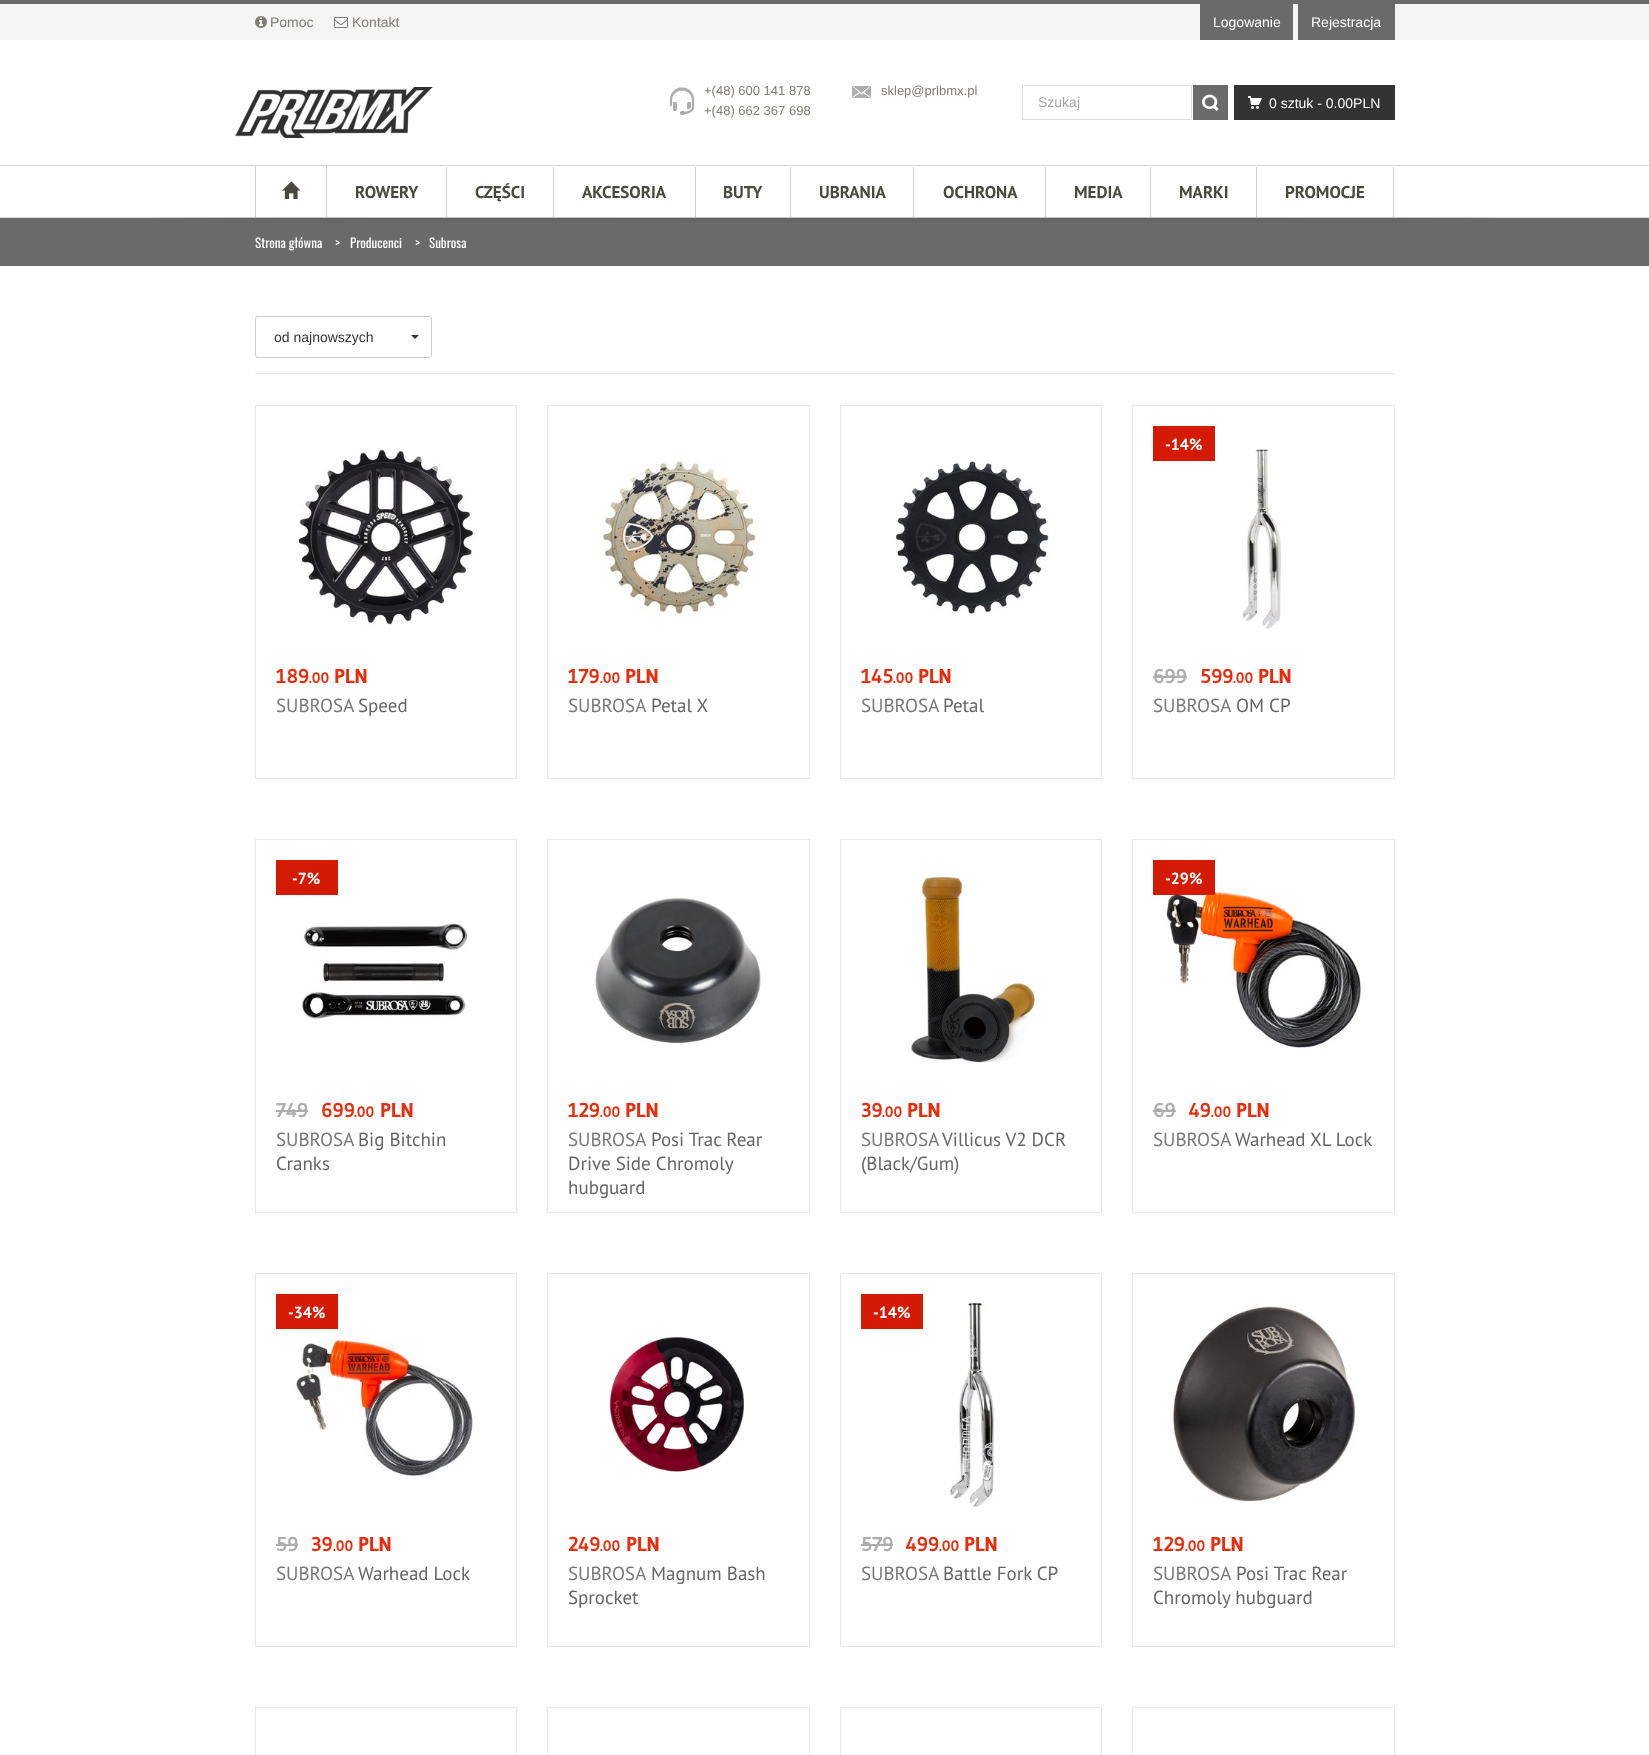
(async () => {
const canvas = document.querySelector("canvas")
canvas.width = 1649
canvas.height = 1755
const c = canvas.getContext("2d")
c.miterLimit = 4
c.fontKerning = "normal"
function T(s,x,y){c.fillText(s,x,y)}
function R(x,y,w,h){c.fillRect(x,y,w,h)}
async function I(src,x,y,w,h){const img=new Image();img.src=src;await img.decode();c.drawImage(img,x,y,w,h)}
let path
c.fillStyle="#fff"
R(0,0,1649,1755)
c.fillStyle="#f5f5f5"
R(0,4,1649,36)
c.fillStyle="#6a6a6a"
R(0,0,1649,4)
await I("1.png",255,16,12,12)
c.font="14px Liberation Sans"
c.fillStyle="#7f7d74"
T("Pomoc",270,27)
await I("2.png",334,17,14,11)
T("Kontakt",352,27)
c.fillStyle="#6a6a6a"
R(1200,4,93,36)
c.fillStyle="#fff"
T("Logowanie",1213,27)
c.fillStyle="#6a6a6a"
R(1298,4,97,36)
c.fillStyle="#fff"
T("Rejestracja",1311,27)
await I("3.png",235,87,198,51)
await I("4.png",670,87,24,28)
c.font="13px Liberation Sans"
c.fillStyle="#7f7d74"
T("+(48) 600 141 878",704,95)
T("+(48) 662 367 698",704,115)
await I("5.png",852,86,19,12)
T("sklep@prlbmx.pl",881,95)
c.strokeStyle="#e0e0e0"
c.strokeRect(1022.5,85.5,169,34)
c.font="14px Liberation Sans"
c.fillStyle="#a4a4a4"
T("Szukaj",1038,107)
c.fillStyle="#6a6a6a"
R(1193,85,35,35)
await I("6.png",1202,94,17,17)
c.fillStyle="#333"
R(1234,85,161,35)
await I("7.png",1248,96,14,13)
c.fillStyle="#fff"
T("0 sztuk - 0.00PLN",1269,108)
c.fillStyle="#d1d5d6"
R(0,165,1649,1)
R(0,217,1649,1)
R(326,166,1,51)
R(255,166,1,51)
await I("8.png",282,181,19,18)
R(446,167,1,50)
c.font="bold 17px PT Sans"
c.fillStyle="#494940"
T("ROWERY",355,198)
c.fillStyle="#d1d5d6"
R(553,167,1,50)
c.fillStyle="#494940"
T("CZĘŚCI",475,198)
c.fillStyle="#d1d5d6"
R(695,167,1,50)
c.fillStyle="#494940"
T("AKCESORIA",582,198)
c.fillStyle="#d1d5d6"
R(790,167,1,50)
c.fillStyle="#494940"
T("BUTY",723,198)
c.fillStyle="#d1d5d6"
R(913,167,1,50)
c.fillStyle="#494940"
T("UBRANIA",819,198)
c.fillStyle="#d1d5d6"
R(1045,167,1,50)
c.fillStyle="#494940"
T("OCHRONA",943,198)
c.fillStyle="#d1d5d6"
R(1150,167,1,50)
c.fillStyle="#494940"
T("MEDIA",1074,198)
c.fillStyle="#d1d5d6"
R(1256,167,1,50)
c.fillStyle="#494940"
T("MARKI",1179,198)
c.fillStyle="#d1d5d6"
R(1393,167,1,50)
c.fillStyle="#494940"
T("PROMOCJE",1285,198)
c.fillStyle="#6a6a6a"
R(0,218,1649,48)
await I("9.png",158,217,1332,5)
c.font="13px Oswald"
c.fillStyle="#fff"
T("Strona główna",255,248)
T(">",335,248)
T("Producenci",350,248)
T(">",415,248)
T("Subrosa",429,248)
c.fillStyle="#eee"
R(255,373,1140,1)
c.beginPath()
c.roundRect(255.5,316.5,176,41,2.5)
c.strokeStyle="#ccc"
c.stroke()
c.font="14px Liberation Sans"
c.fillStyle="#333"
T("od najnowszych",274,342)
path = new Path2D("M411 335h8l-4 4z")
c.fill(path)
c.strokeStyle="#e8e8e8"
c.strokeRect(255.5,405.5,261,373)
await I("10.png",297,449,180,178)
c.font="bold 20px Gudea"
c.fillStyle="#e82c0c"
T("189",276,683)
c.font="bold 15px Gudea"
T(".00",309,683)
c.font="bold 20px Gudea"
T("PLN",334,683)
c.font="19px PT Sans"
c.fillStyle="#777"
T("SUBROSA",276,712)
c.fillStyle="#646464"
T("Speed",358,712)
c.strokeRect(547.5,405.5,262,373)
await I("11.png",603,461,154,155)
c.font="bold 20px Gudea"
c.fillStyle="#e82c0c"
T("179",568,683)
c.font="bold 15px Gudea"
T(".00",600,683)
c.font="bold 20px Gudea"
T("PLN",625,683)
c.font="19px PT Sans"
c.fillStyle="#777"
T("SUBROSA",568,712)
c.fillStyle="#646464"
T("Petal X",651,712)
c.strokeRect(840.5,405.5,261,373)
await I("12.png",895,461,155,154)
c.font="bold 20px Gudea"
c.fillStyle="#e82c0c"
T("145",861,683)
c.font="bold 15px Gudea"
T(".00",893,683)
c.font="bold 20px Gudea"
T("PLN",918,683)
c.font="19px PT Sans"
c.fillStyle="#777"
T("SUBROSA",861,712)
c.fillStyle="#646464"
T("Petal",943,712)
c.strokeRect(1132.5,405.5,262,373)
c.fillStyle="#d51a03"
R(1153,426,62,35)
c.font="bold 16px PT Sans"
c.fillStyle="#fff"
T("-14%",1165,450)
await I("13.png",1242,449,41,180)
c.font="bold 20px Gudea"
c.fillStyle="#adadad"
T("699",1153,683)
R(1153,676,34,2)
c.fillStyle="#e82c0c"
T("599",1200,683)
c.font="bold 15px Gudea"
T(".00",1233,683)
c.font="bold 20px Gudea"
T("PLN",1258,683)
c.font="19px PT Sans"
c.fillStyle="#777"
T("SUBROSA",1153,712)
c.fillStyle="#646464"
T("OM CP",1236,712)
c.strokeRect(255.5,839.5,261,373)
c.fillStyle="#d51a03"
R(276,860,62,35)
c.font="bold 16px PT Sans"
c.fillStyle="#fff"
T("-7%",292,884)
await I("14.png",300,922,170,98)
c.font="bold 20px Gudea"
c.fillStyle="#adadad"
T("749",276,1117)
R(276,1110,32,2)
c.fillStyle="#e82c0c"
T("699",321,1117)
c.font="bold 15px Gudea"
T(".00",354,1117)
c.font="bold 20px Gudea"
T("PLN",380,1117)
c.font="19px PT Sans"
c.fillStyle="#777"
T("SUBROSA",276,1146)
c.fillStyle="#646464"
T("Big Bitchin",358,1146)
T("Cranks",276,1170)
c.strokeRect(547.5,839.5,262,373)
await I("15.png",595,896,167,148)
c.font="bold 20px Gudea"
c.fillStyle="#e82c0c"
T("129",568,1117)
c.font="bold 15px Gudea"
T(".00",600,1117)
c.font="bold 20px Gudea"
T("PLN",625,1117)
c.font="19px PT Sans"
c.fillStyle="#777"
T("SUBROSA",568,1146)
c.fillStyle="#646464"
T("Posi Trac Rear",651,1146)
T("Drive Side Chromoly",568,1170)
T("hubguard",568,1194)
c.strokeRect(840.5,839.5,261,373)
await I("16.png",908,873,131,191)
c.font="bold 20px Gudea"
c.fillStyle="#e82c0c"
T("39",861,1117)
c.font="bold 15px Gudea"
T(".00",882,1117)
c.font="bold 20px Gudea"
T("PLN",907,1117)
c.font="19px PT Sans"
c.fillStyle="#777"
T("SUBROSA",861,1146)
c.fillStyle="#646464"
T("Villicus V2 DCR",942,1146)
T("(Black/Gum)",861,1170)
c.strokeRect(1132.5,839.5,262,373)
await I("17.png",1166,890,195,169)
c.fillStyle="#d51a03"
R(1153,860,62,35)
c.font="bold 16px PT Sans"
c.fillStyle="#fff"
T("-29%",1165,884)
c.font="bold 20px Gudea"
c.fillStyle="#adadad"
T("69",1153,1117)
R(1153,1110,23,2)
c.fillStyle="#e82c0c"
T("49",1189,1117)
c.font="bold 15px Gudea"
T(".00",1211,1117)
c.font="bold 20px Gudea"
T("PLN",1236,1117)
c.font="19px PT Sans"
c.fillStyle="#777"
T("SUBROSA",1153,1146)
c.fillStyle="#646464"
T("Warhead XL Lock",1235,1146)
c.strokeRect(255.5,1273.5,261,373)
c.fillStyle="#d51a03"
R(276,1294,62,35)
c.font="bold 16px PT Sans"
c.fillStyle="#fff"
T("-34%",288,1318)
await I("18.png",295,1332,180,145)
c.font="bold 20px Gudea"
c.fillStyle="#adadad"
T("59",276,1551)
R(276,1544,22,2)
c.fillStyle="#e82c0c"
T("39",311,1551)
c.font="bold 15px Gudea"
T(".00",333,1551)
c.font="bold 20px Gudea"
T("PLN",358,1551)
c.font="19px PT Sans"
c.fillStyle="#777"
T("SUBROSA",276,1580)
c.fillStyle="#646464"
T("Warhead Lock",358,1580)
c.strokeRect(547.5,1273.5,262,373)
await I("19.png",609,1336,136,136)
c.font="bold 20px Gudea"
c.fillStyle="#e82c0c"
T("249",568,1551)
c.font="bold 15px Gudea"
T(".00",600,1551)
c.font="bold 20px Gudea"
T("PLN",626,1551)
c.font="19px PT Sans"
c.fillStyle="#777"
T("SUBROSA",568,1580)
c.fillStyle="#646464"
T("Magnum Bash",651,1580)
T("Sprocket",568,1604)
c.strokeRect(840.5,1273.5,261,373)
c.fillStyle="#d51a03"
R(861,1294,62,35)
c.font="bold 16px PT Sans"
c.fillStyle="#fff"
T("-14%",873,1318)
await I("20.png",950,1303,45,204)
c.font="bold 20px Gudea"
c.fillStyle="#adadad"
T("579",861,1551)
R(861,1544,32,2)
c.fillStyle="#e82c0c"
T("499",906,1551)
c.font="bold 15px Gudea"
T(".00",939,1551)
c.font="bold 20px Gudea"
T("PLN",964,1551)
c.font="19px PT Sans"
c.fillStyle="#777"
T("SUBROSA",861,1580)
c.fillStyle="#646464"
T("Battle Fork CP",943,1580)
c.strokeRect(1132.5,1273.5,262,373)
await I("21.png",1171,1306,186,196)
c.font="bold 20px Gudea"
c.fillStyle="#e82c0c"
T("129",1153,1551)
c.font="bold 15px Gudea"
T(".00",1185,1551)
c.font="bold 20px Gudea"
T("PLN",1210,1551)
c.font="19px PT Sans"
c.fillStyle="#777"
T("SUBROSA",1153,1580)
c.fillStyle="#646464"
T("Posi Trac Rear",1236,1580)
T("Chromoly hubguard",1153,1604)
c.strokeRect(255.5,1707.5,261,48)
c.strokeRect(547.5,1707.5,262,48)
c.strokeRect(840.5,1707.5,261,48)
c.strokeRect(1132.5,1707.5,262,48)
})()
